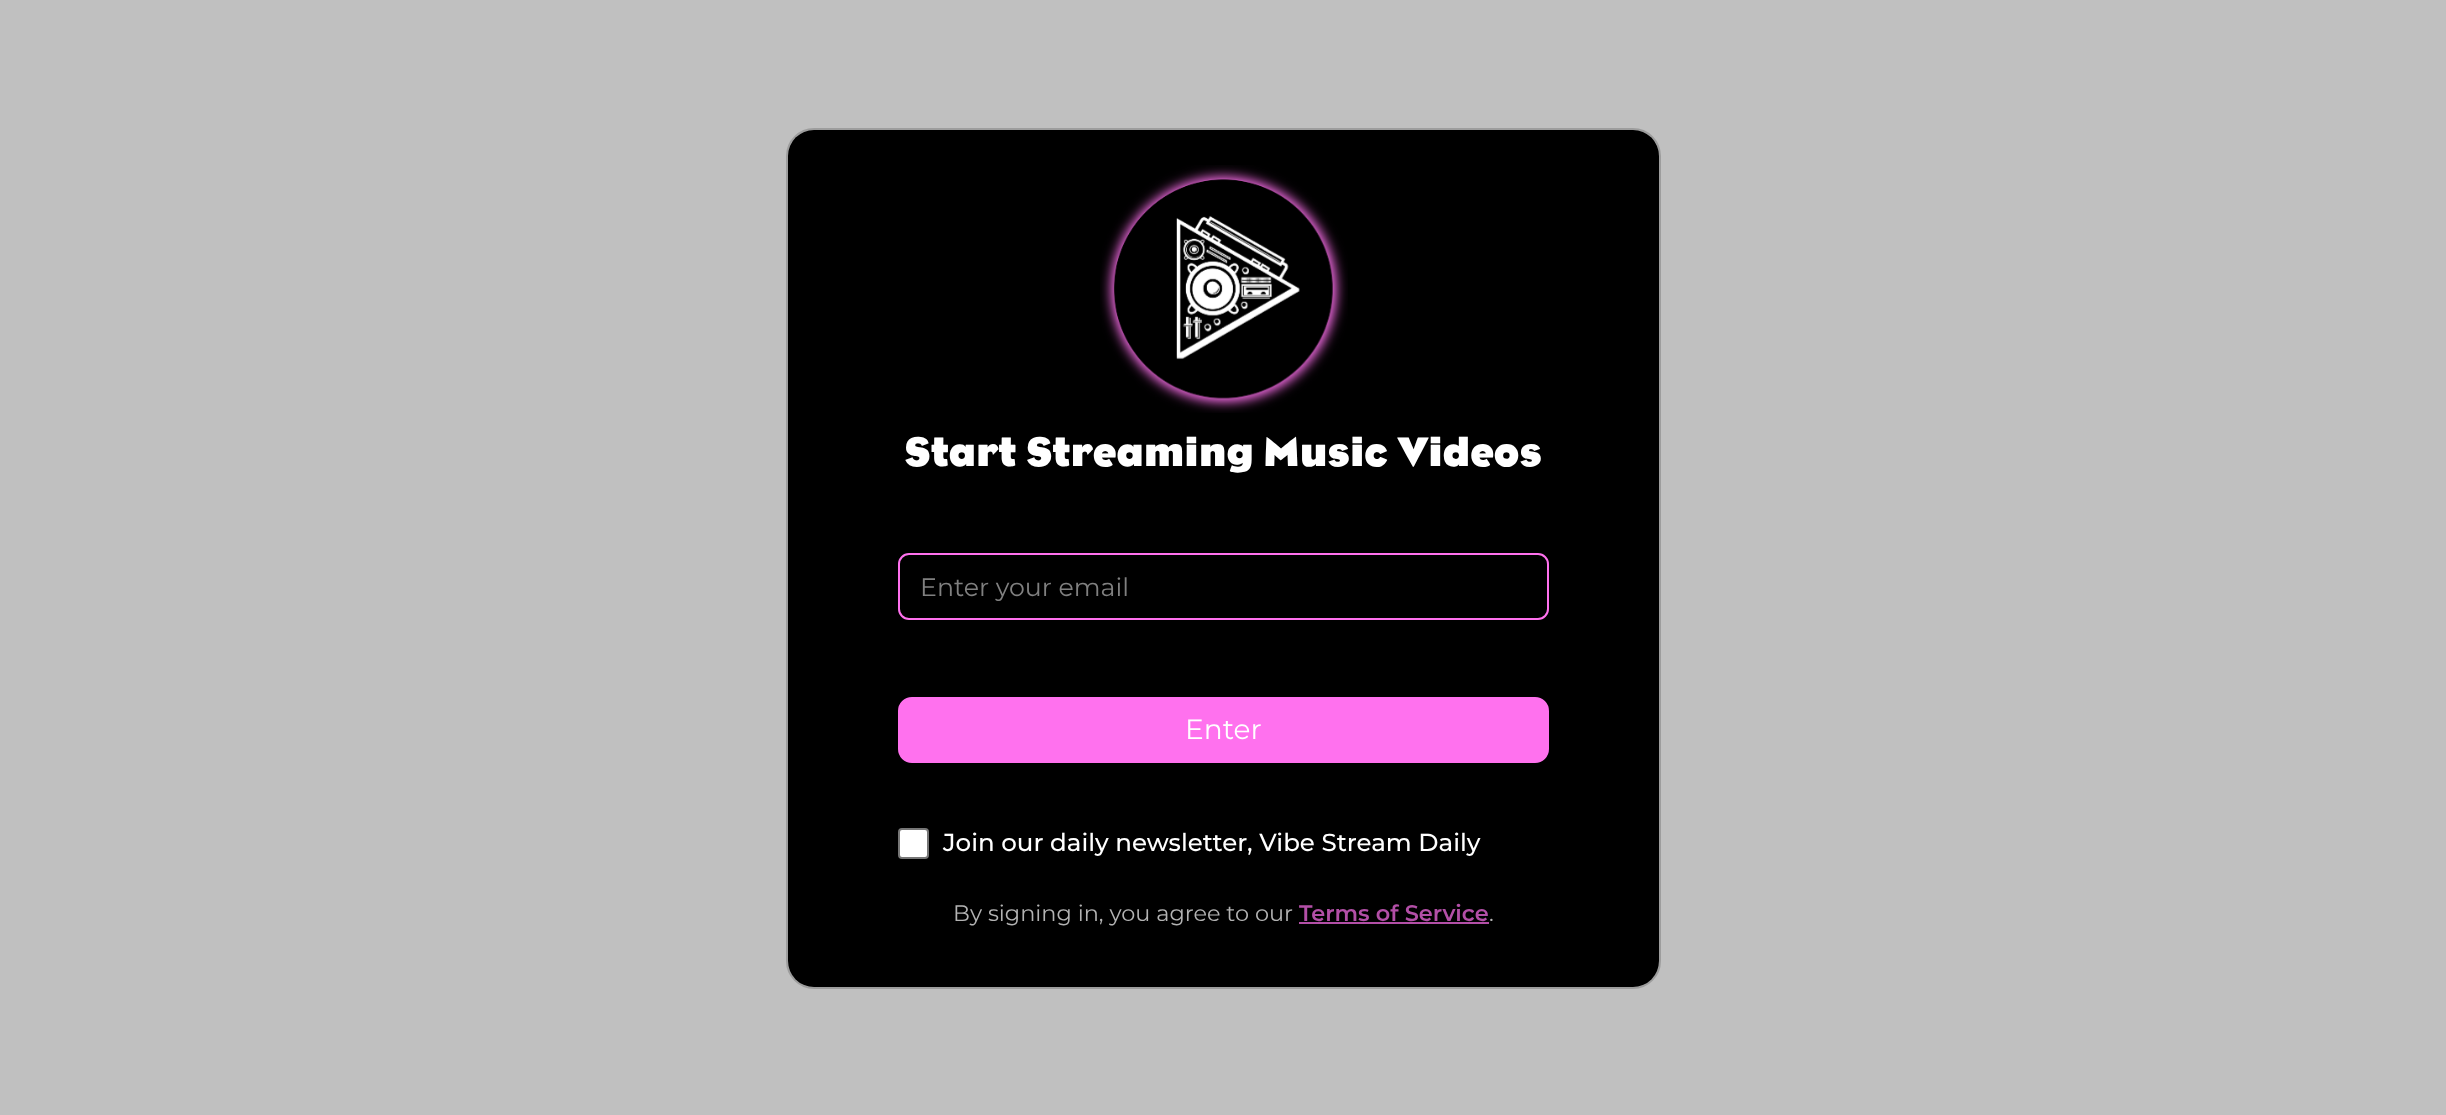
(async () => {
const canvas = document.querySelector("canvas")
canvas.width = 2446
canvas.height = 1115
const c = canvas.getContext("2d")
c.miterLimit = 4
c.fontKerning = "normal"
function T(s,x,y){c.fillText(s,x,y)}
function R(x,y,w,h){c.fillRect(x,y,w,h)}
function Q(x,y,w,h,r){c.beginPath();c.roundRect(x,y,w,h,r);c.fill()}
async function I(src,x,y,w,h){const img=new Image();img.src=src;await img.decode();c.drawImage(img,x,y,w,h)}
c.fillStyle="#c0c0c0"
R(0,0,2446,1115)
c.fillStyle="#000"
Q(788,130,871,857,26)
c.beginPath()
c.roundRect(787,129,873,859,27)
c.strokeStyle="#0000002e"
c.lineWidth=2
c.stroke()
await I("1.png",1100,165,248,248)
c.font="bold 42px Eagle"
c.fillStyle="#fff"
T("Start Streaming Music Videos",904,466)
c.beginPath()
c.roundRect(899,554,649,65,10)
c.strokeStyle="#ff71ee"
c.stroke()
c.font="25.25px Montserrat"
c.fillStyle="#808080"
T("Enter your email",920,596)
c.fillStyle="#ff71ee"
c.beginPath()
c.roundRect(899,698,649,64,13)
c.fill()
c.stroke()
c.font="28px Montserrat"
c.fillStyle="#fff"
T("Enter",1185,739)
c.beginPath()
c.roundRect(899,829,29,29,3)
c.fill()
c.strokeStyle="#767676"
c.stroke()
c.font="500 24.5px Montserrat"
T("Join our daily newsletter, Vibe Stream Daily",943,851)
c.font="22.4px Montserrat"
c.fillStyle="#b3b3b3"
T("By signing in, you agree to our",953,921)
c.font="600 22.4px Montserrat"
c.fillStyle="#b34fa7"
T("Terms of Service",1299,921)
R(1299,922,190,2)
c.font="22.4px Montserrat"
c.fillStyle="#b3b3b3"
T(".",1489,921)
})()
